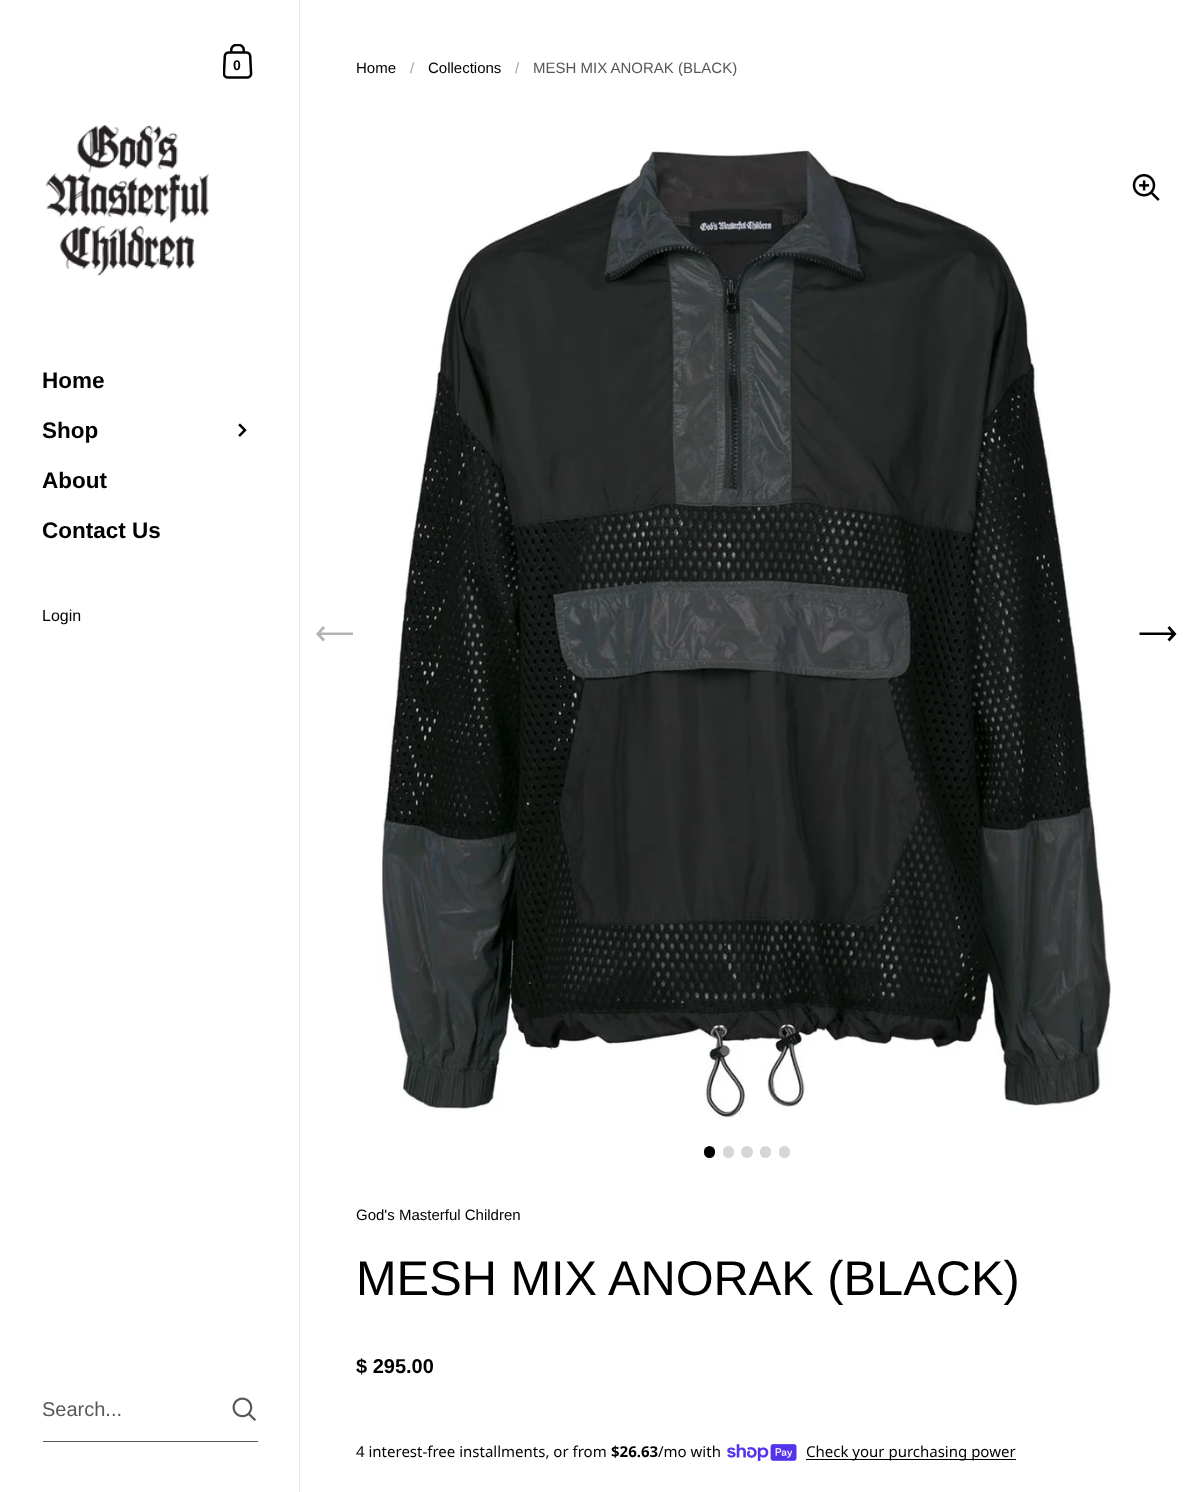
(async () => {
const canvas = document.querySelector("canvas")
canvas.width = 1192
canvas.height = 1492
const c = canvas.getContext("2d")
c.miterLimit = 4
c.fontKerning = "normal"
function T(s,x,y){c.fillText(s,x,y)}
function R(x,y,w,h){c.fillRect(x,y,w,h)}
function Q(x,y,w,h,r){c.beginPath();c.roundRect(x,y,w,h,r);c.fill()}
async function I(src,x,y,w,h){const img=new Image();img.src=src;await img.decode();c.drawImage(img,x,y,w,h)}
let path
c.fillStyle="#fff"
R(0,0,1192,1492)
c.fillStyle="#ebebeb"
R(299,0,1,1492)
await I("1.png",223,44,30,35)
c.font="bold 14px Liberation Sans"
c.fillStyle="#000"
T("0",233,70)
await I("2.png",45,124,164,152)
c.font="bold 22.5px Liberation Sans"
T("Home",42,388)
T("Shop",42,438)
await I("3.png",238,423,9,14)
T("About",42,488)
T("Contact Us",42,538)
c.font="16px Liberation Sans"
T("Login",42,621)
c.fillStyle="#575757"
R(43,1441,215,1)
c.font="20px Liberation Sans"
T("Search...",42,1416)
await I("4.png",232,1397,24,24)
c.font="15px Liberation Sans"
c.fillStyle="#000"
T("Home",356,73)
c.fillStyle="#a3a3a3"
T("/",410,73)
c.fillStyle="#000"
T("Collections",428,73)
c.fillStyle="#a3a3a3"
T("/",515,73)
c.fillStyle="#575757"
T("MESH MIX ANORAK (BLACK)",533,73)
await I("5.png",381,148,730,970)
await I("6.png",1132,174,28,27)
c.fillStyle="#b3b3b3"
path = new Path2D("M323 641.5l2-2l-4-4.5h32v-2.5h-32l4-4.5l-2-2l-7 8z")
c.fill(path)
c.fillStyle="#000"
path = new Path2D("M1169.5 626l-2 2l4 4.5h-32v2.5h32l-4 4.5l2 2l7-7.5z")
c.fill(path)
Q(704,1146,11,12,5.5)
c.fillStyle="#d6d6d6"
Q(723,1146,11,12,5.5)
c.beginPath()
c.arc(747,1152,6,0,7)
c.fill()
Q(760,1146,11,12,5.5)
Q(779,1146,11,12,5.5)
c.fillStyle="#000"
T("God's Masterful Children",356,1220)
c.font="48.75px Liberation Sans"
T("MESH MIX ANORAK (BLACK)",356,1295)
c.font="bold 20px Liberation Sans"
T("$ 295.00",356,1373)
c.font="15px Noto Sans"
T("4 interest-free installments, or from",356,1457)
c.font="bold 15px Noto Sans"
T("$26.63",611,1457)
c.font="15px Noto Sans"
T("/mo with",658,1457)
await I("7.png",727,1444,70,17)
R(806,1459,210,1)
T("Check your purchasing power",806,1457)
})()
